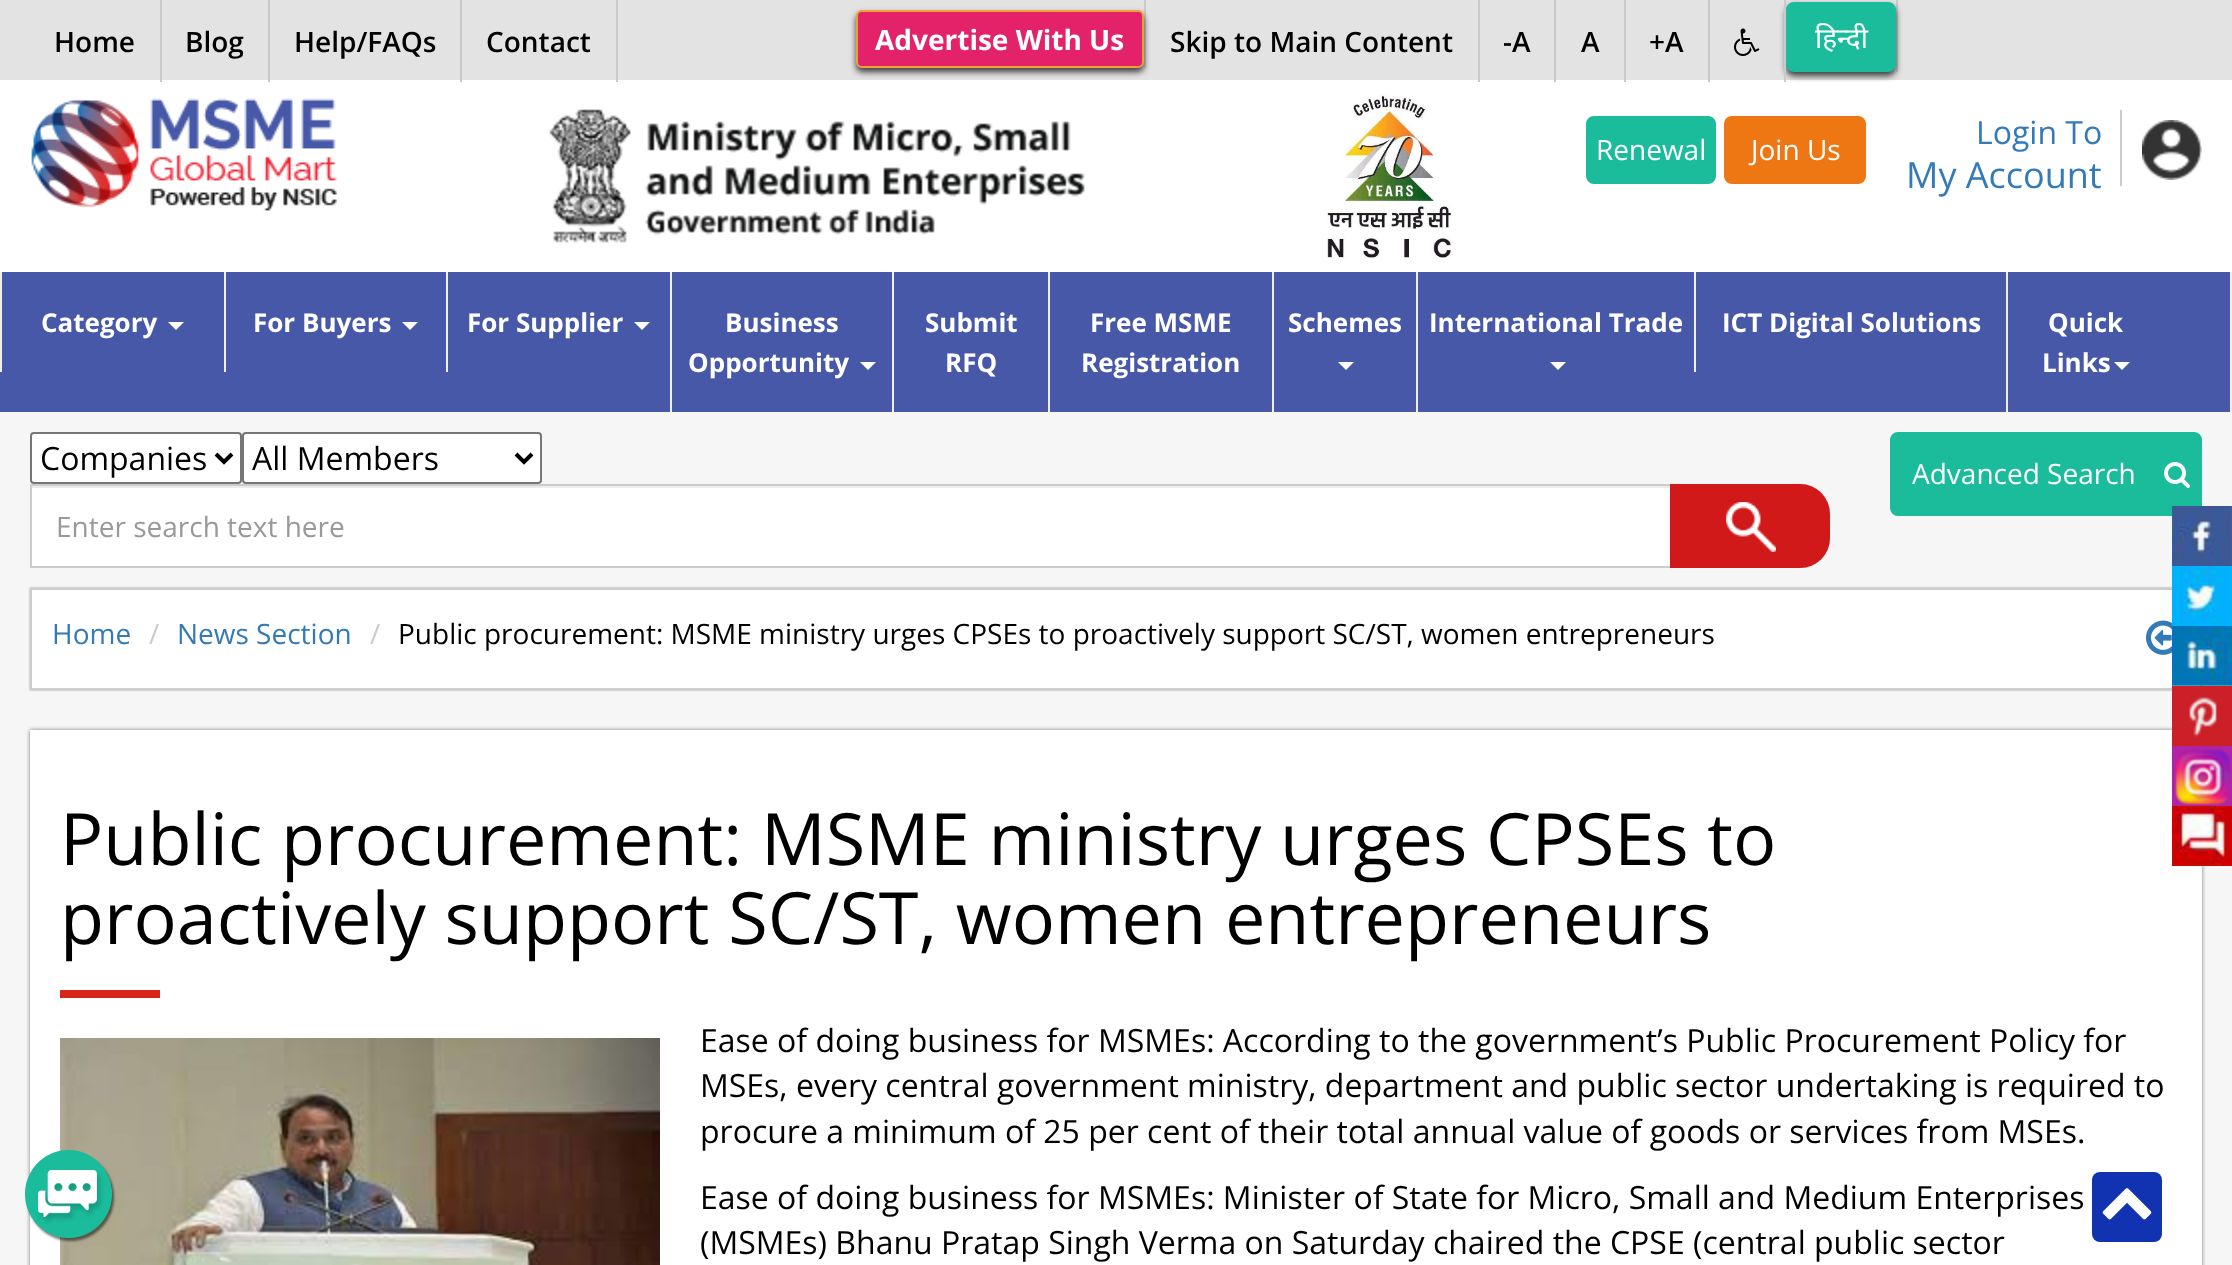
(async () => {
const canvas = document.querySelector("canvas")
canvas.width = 2232
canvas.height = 1265
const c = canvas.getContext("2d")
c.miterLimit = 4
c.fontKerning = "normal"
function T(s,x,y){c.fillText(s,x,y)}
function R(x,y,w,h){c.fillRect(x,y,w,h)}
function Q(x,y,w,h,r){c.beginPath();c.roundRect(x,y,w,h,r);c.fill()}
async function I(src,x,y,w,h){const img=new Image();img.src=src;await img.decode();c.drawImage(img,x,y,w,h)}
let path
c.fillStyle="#f6f6f6"
R(0,0,2232,1265)
c.fillStyle="#e3e3e3"
R(0,0,2232,80)
c.fillStyle="#fff"
R(0,80,2232,192)
c.fillStyle="#cacaca"
R(160,0,2,82)
c.font="600 28px Open Sans"
c.fillStyle="#000"
T("Home",54,52)
c.fillStyle="#cacaca"
R(268,0,2,82)
c.fillStyle="#000"
T("Blog",185,52)
c.fillStyle="#cacaca"
R(460,0,2,82)
c.fillStyle="#000"
T("Help/FAQs",294,52)
c.fillStyle="#cacaca"
R(616,0,2,82)
c.fillStyle="#000"
T("Contact",486,52)
c.fillStyle="#cacaca"
R(1144,0,2,68)
c.fillStyle="#3e3d3d"
c.filter="blur(3px)"
c.beginPath()
c.roundRect(856,14,288,58,6)
c.fill()
c.filter="none"
c.fillStyle="#e32269"
c.beginPath()
c.roundRect(857,11,286,56,5)
c.fill()
c.strokeStyle="#eea236"
c.lineWidth=2
c.stroke()
c.font="bold 28px Open Sans"
c.fillStyle="#fff"
T("Advertise With Us",875,50)
c.fillStyle="#cacaca"
R(1478,0,2,82)
c.font="600 28px Open Sans"
c.fillStyle="#000"
T("Skip to Main Content",1170,52)
c.fillStyle="#cacaca"
R(1554,0,2,82)
c.fillStyle="#000"
T("-A",1503,52)
c.fillStyle="#cacaca"
R(1624,0,2,82)
c.fillStyle="#000"
T("A",1581,52)
c.fillStyle="#cacaca"
R(1708,0,2,82)
c.fillStyle="#000"
T("+A",1649,52)
c.fillStyle="#cacaca"
R(1896,0,2,72)
c.fillStyle="#3e3d3d"
c.filter="blur(3px)"
c.beginPath()
c.roundRect(1786,6,110,70,8)
c.fill()
c.filter="none"
c.fillStyle="#cacaca"
R(1784,0,2,82)
await I("1.png",1734,28,26,28)
c.fillStyle="#1abc9c"
c.beginPath()
c.roundRect(1787,3,108,68,7)
c.fill()
c.strokeStyle="#1abc9c"
c.stroke()
c.font="28px Noto Sans"
c.fillStyle="#fff"
T("हिन्दी",1815,48)
await I("2.png",31,98,307,113)
await I("3.png",549,109,536,134)
await I("4.png",1326,94,127,165)
c.fillStyle="#1abc9c"
c.beginPath()
c.roundRect(1587,117,128,66,7)
c.fill()
c.stroke()
c.font="28px Open Sans"
c.fillStyle="#fff"
T("Renewal",1596,160)
c.fillStyle="#ef7713"
Q(1724,116,142,68,8)
c.fillStyle="#fff"
T("Join Us",1751,160)
c.font="32px Open Sans"
c.fillStyle="#337ab7"
T("Login To",1976,144)
c.font="36px Open Sans"
T("My Account",1906,188)
c.fillStyle="#ccc"
R(2120,110,2,76)
await I("5.png",2142,120,60,60)
c.fillStyle="#4658a7"
R(0,272,2230,140)
c.fillStyle="#eee"
R(2230,272,2,140)
R(0,272,2,100)
c.font="bold 26px Open Sans"
c.fillStyle="#fff"
T("Category",41,332)
path = new Path2D("M168 322h16l-8 8z")
c.fill(path)
c.fillStyle="#eee"
R(224,272,2,100)
c.fillStyle="#fff"
T("For Buyers",253,332)
path = new Path2D("M402 322h16l-8 8z")
c.fill(path)
c.fillStyle="#eee"
R(446,272,2,100)
c.fillStyle="#fff"
T("For Supplier",467,332)
path = new Path2D("M634 322h16l-8 8z")
c.fill(path)
c.fillStyle="#eee"
R(670,272,2,140)
c.fillStyle="#fff"
T("Business",725,332)
T("Opportunity",688,372)
path = new Path2D("M860 362h16l-8 8z")
c.fill(path)
c.fillStyle="#eee"
R(892,272,2,140)
c.fillStyle="#fff"
T("Submit",925,332)
T("RFQ",945,372)
c.fillStyle="#eee"
R(1048,272,2,140)
c.fillStyle="#fff"
T("Free MSME",1090,332)
T("Registration",1081,372)
c.fillStyle="#eee"
R(1272,272,2,140)
c.fillStyle="#fff"
T("Schemes",1288,332)
path = new Path2D("M1338 362h16l-8 8z")
c.fill(path)
c.fillStyle="#eee"
R(1416,272,2,140)
c.fillStyle="#fff"
T("International Trade",1429,332)
path = new Path2D("M1550 362h16l-8 8z")
c.fill(path)
c.fillStyle="#eee"
R(1694,272,2,100)
c.fillStyle="#fff"
T("ICT Digital Solutions",1722,332)
c.fillStyle="#eee"
R(2006,272,2,140)
c.fillStyle="#fff"
T("Quick",2048,332)
T("Links",2042,372)
path = new Path2D("M2114 362h16l-8 8z")
c.fill(path)
c.beginPath()
c.roundRect(31,433,210,50,3)
c.fill()
c.strokeStyle="#767676"
c.stroke()
path = new Path2D("M216 454l8 8l8-8")
c.strokeStyle="#000"
c.lineWidth=4
c.stroke(path)
c.font="32px Open Sans"
c.fillStyle="#000"
T("Companies",40,470)
c.fillStyle="#fff"
c.beginPath()
c.roundRect(243,433,298,50,3)
c.fill()
c.strokeStyle="#767676"
c.lineWidth=2
c.stroke()
path = new Path2D("M516 454l8 8l8-8")
c.strokeStyle="#000"
c.lineWidth=4
c.stroke(path)
c.fillStyle="#000"
T("All Members",252,470)
c.fillStyle="#fff"
c.beginPath()
c.roundRect(30,484,1800,84,[0,30,30,0])
c.fill()
c.fillStyle="#ececec"
path = new Path2D("M32 488h1768c15 0 28 13 28 28c0-16-11-30-28-30h-1768z")
c.fill(path)
c.beginPath()
c.roundRect(31,485,1798,82,[0,29,29,0])
c.strokeStyle="#ccc"
c.lineWidth=2
c.stroke()
c.font="28px Open Sans"
c.fillStyle="#999"
T("Enter search text here",56,537)
c.fillStyle="#d11919"
c.beginPath()
c.roundRect(1670,484,160,84,[0,30,30,0])
c.fill()
await I("6.png",1726,502,50,50)
c.fillStyle="#1abc9c"
c.beginPath()
c.roundRect(1891,433,310,82,7)
c.fill()
c.strokeStyle="#1abc9c"
c.stroke()
c.fillStyle="#fff"
T("Advanced Search",1912,484)
await I("7.png",2164,462,26,26)
c.fillStyle="#00000066"
c.filter="blur(1px)"
c.beginPath()
c.rect(30,588,2172,102)
c.fill()
c.filter="none"
c.fillStyle="#fff"
c.beginPath()
c.rect(31,589,2170,100)
c.fill()
c.strokeStyle="#ccc"
c.stroke()
c.fillStyle="#337ab7"
T("Home",52,644)
c.fillStyle="#ccc"
T("/",149,644)
c.fillStyle="#337ab7"
T("News Section",177,644)
c.fillStyle="#ccc"
T("/",370,644)
c.fillStyle="#000"
T("Public procurement: MSME ministry urges CPSEs to proactively support SC/ST, women entrepreneurs",398,644)
await I("8.png",2146,620,26,35)
c.fillStyle="#00000080"
c.filter="blur(2px)"
c.beginPath()
c.rect(30,730,2172,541)
c.fill()
c.filter="none"
c.fillStyle="#fff"
R(30,730,2172,535)
c.font="72px Open Sans"
c.fillStyle="#000"
T("Public procurement: MSME ministry urges CPSEs to",60,865)
T("proactively support SC/ST, women entrepreneurs",60,944)
c.fillStyle="#d8261c"
R(60,990,100,8)
await I("9.png",60,1038,600,227)
c.font="32px Open Sans"
c.fillStyle="#000"
T("Ease of doing business for MSMEs: According to the government’s Public Procurement Policy for",700,1052)
T("MSEs, every central government ministry, department and public sector undertaking is required to",700,1097)
T("procure a minimum of 25 per cent of their total annual value of goods or services from MSEs.",700,1143)
T("Ease of doing business for MSMEs: Minister of State for Micro, Small and Medium Enterprises",700,1209)
T("(MSMEs) Bhanu Pratap Singh Verma on Saturday chaired the CPSE (central public sector",700,1254)
await I("10.png",2172,506,60,60)
c.fillStyle="#01b1fd"
R(2172,566,4,60)
await I("11.png",2176,566,56,60)
await I("12.png",2172,626,60,60)
c.fillStyle="#cb2027"
R(2172,686,60,60)
await I("13.png",2189,697,28,40)
c.fillStyle="#b023a7"
R(2172,746,60,60)
await I("14.png",2175,749,56,56)
await I("15.png",2172,806,60,60)
await I("16.png",25,1150,91,93)
c.fillStyle="#1133b1"
Q(2092,1172,70,70,8)
await I("17.png",2102,1188,50,32)
})()
